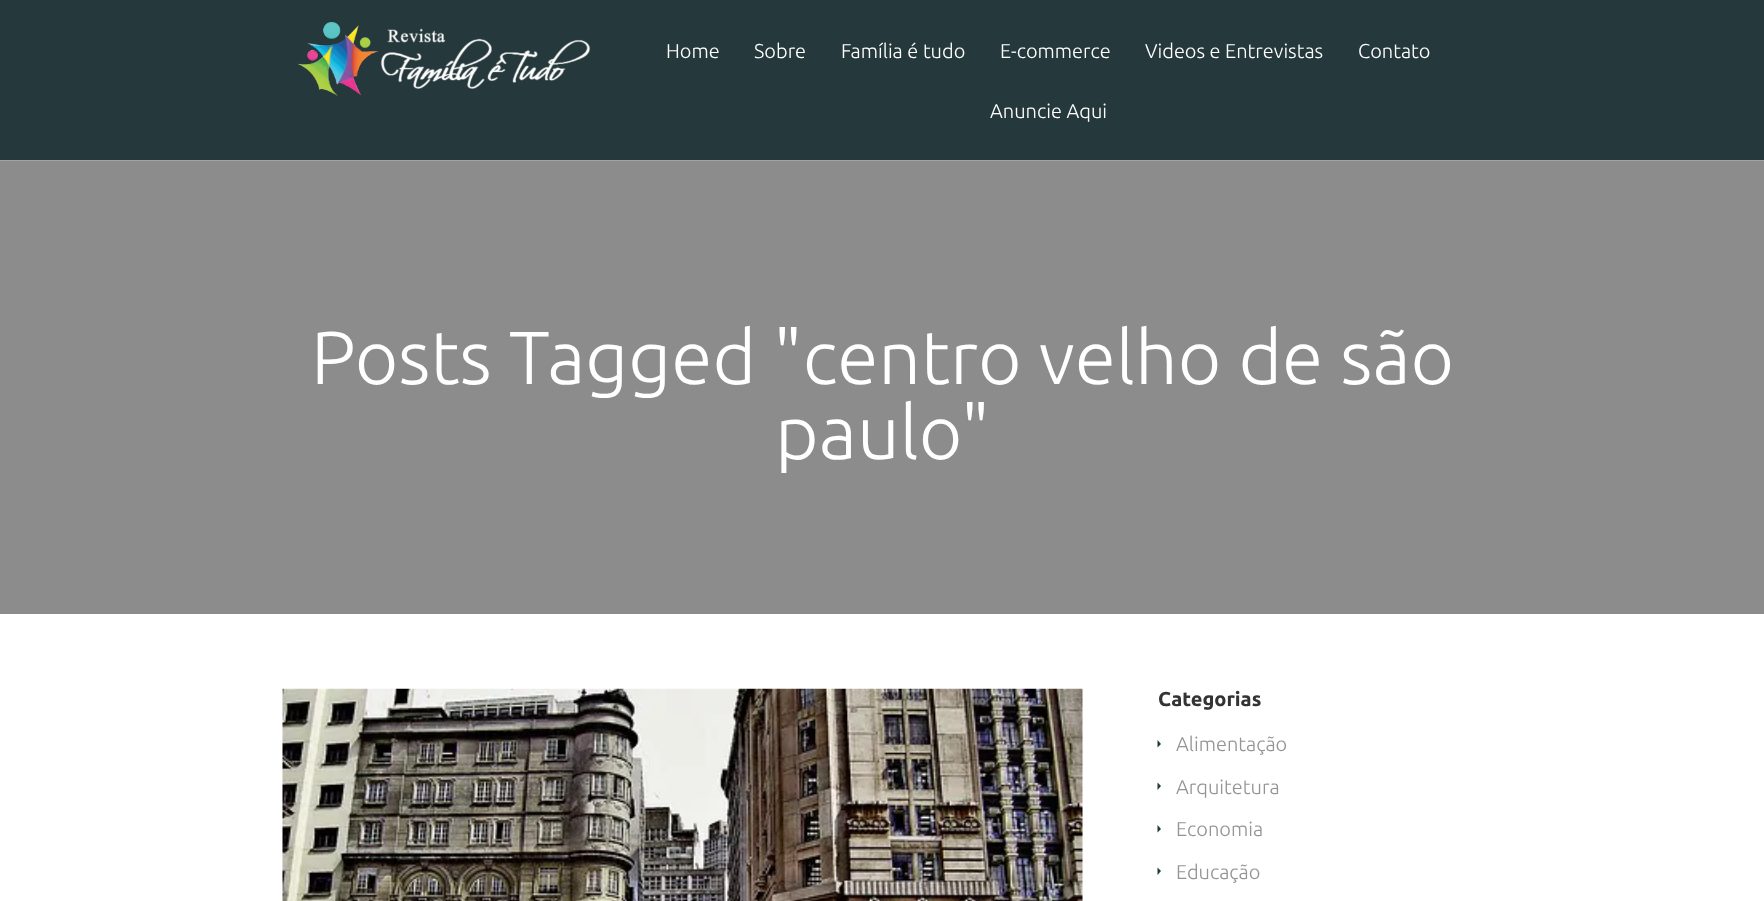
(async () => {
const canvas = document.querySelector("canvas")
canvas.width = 1764
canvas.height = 901
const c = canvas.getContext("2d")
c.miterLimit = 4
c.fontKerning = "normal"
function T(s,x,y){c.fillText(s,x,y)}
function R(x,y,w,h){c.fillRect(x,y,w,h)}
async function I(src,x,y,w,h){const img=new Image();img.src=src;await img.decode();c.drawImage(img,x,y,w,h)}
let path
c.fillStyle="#8c8c8c"
R(0,0,1764,901)
c.fillStyle="#a3a3a3"
R(0,160,1764,1)
c.fillStyle="#25383b"
R(0,0,1764,160)
await I("1.png",297,22,294,74)
c.font="300 20px Ubuntu"
c.fillStyle="#fff"
T("Home",666,58)
T("Sobre",754,58)
T("Família é tudo",841,58)
T("E-commerce",1000,58)
T("Videos e Entrevistas",1145,58)
T("Contato",1358,58)
T("Anuncie Aqui",990,118)
c.font="300 75px Ubuntu"
T("Posts Tagged \"centro velho de são",311,384)
T("paulo\"",775,459)
R(0,614,1764,287)
await I("2.png",282,688,801,213)
c.font="bold 20px Ubuntu"
c.fillStyle="#333"
T("Categorias",1158,706)
c.fillStyle="#25383b"
path = new Path2D("M1157.5 747.5v-7.5l3.5 4z")
c.fill(path)
c.font="300 20px Ubuntu"
c.fillStyle="#959494"
T("Alimentação",1176,751)
c.fillStyle="#25383b"
path = new Path2D("M1157.5 790v-7.5l3.5 3.5z")
c.fill(path)
c.fillStyle="#959494"
T("Arquitetura",1176,794)
c.fillStyle="#25383b"
path = new Path2D("M1157.5 832.5v-7.5l3.5 4z")
c.fill(path)
c.fillStyle="#959494"
T("Economia",1176,836)
c.fillStyle="#25383b"
path = new Path2D("M1157.5 875v-7.5l3.5 3.5z")
c.fill(path)
c.fillStyle="#959494"
T("Educação",1176,879)
})()
